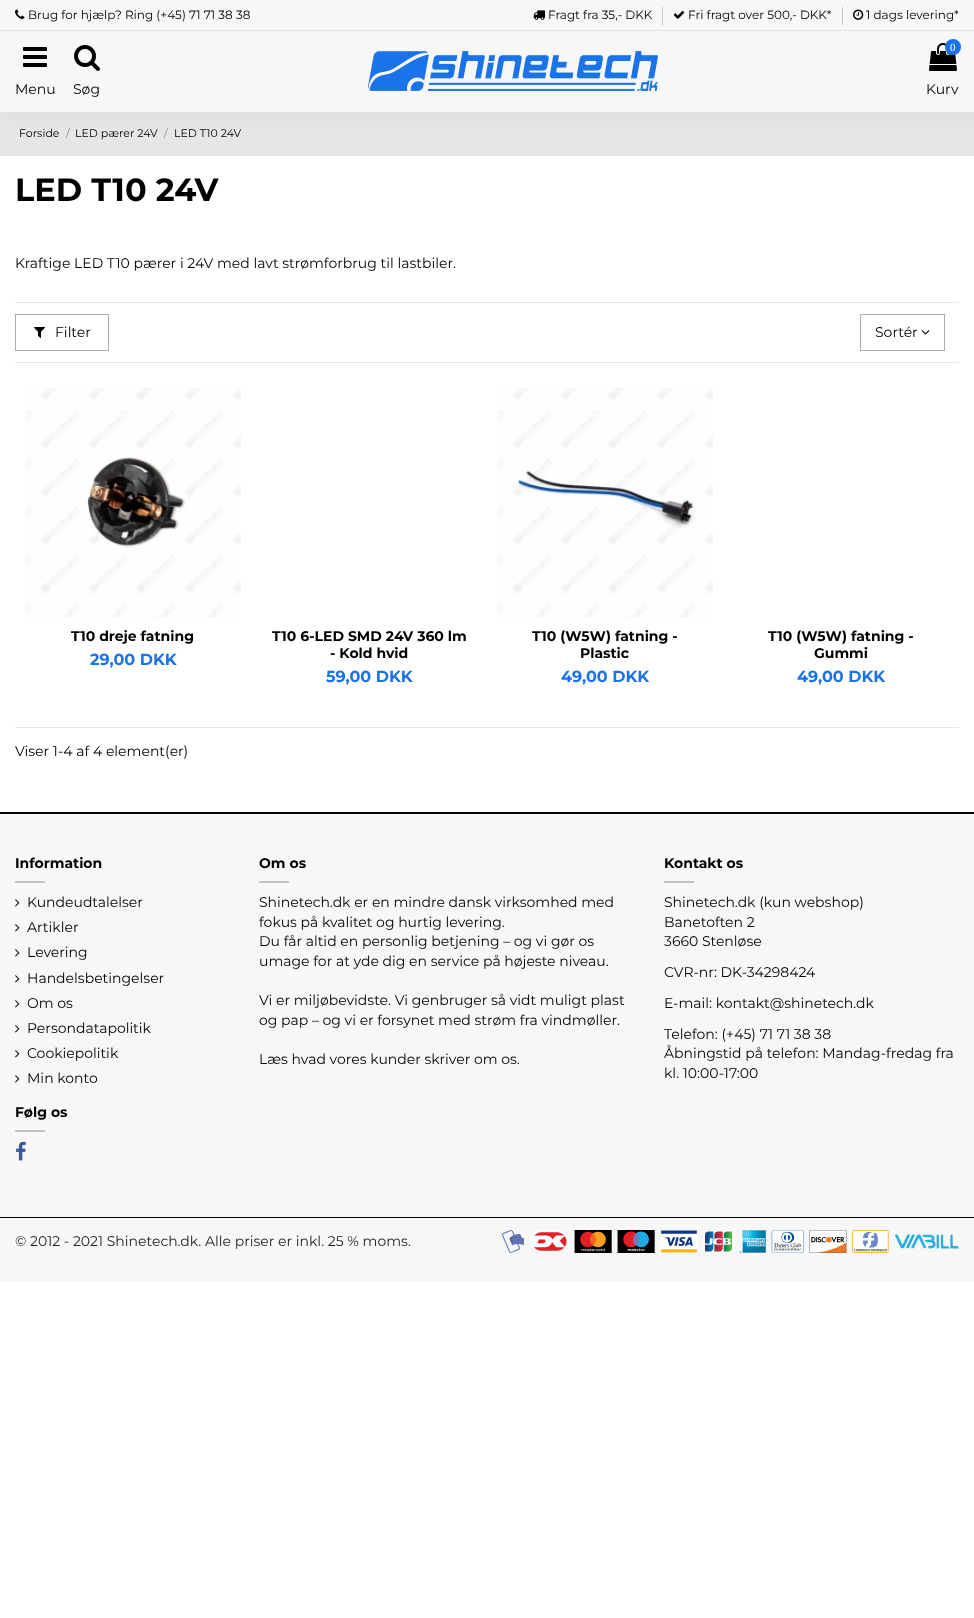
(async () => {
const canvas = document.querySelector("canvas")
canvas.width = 974
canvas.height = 1618
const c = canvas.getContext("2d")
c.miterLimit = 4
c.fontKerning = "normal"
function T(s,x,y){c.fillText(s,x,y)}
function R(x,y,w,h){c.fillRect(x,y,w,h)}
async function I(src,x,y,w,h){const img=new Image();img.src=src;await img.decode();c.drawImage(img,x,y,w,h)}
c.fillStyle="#fff"
R(0,0,974,1618)
c.fillStyle="#e6e6e6"
R(0,113,974,43)
c.fillStyle="#3d393917"
c.filter="blur(7.5px)"
c.beginPath()
c.rect(5,0,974,113)
c.fill()
c.filter="none"
c.fillStyle="#f7f7f7"
R(0,0,974,112)
c.fillStyle="#e3e3e3"
R(0,112,974,1)
R(0,30,974,1)
await I("1.png",15,9,10,10)
c.font="12px Montserrat"
c.fillStyle="#000"
T("Brug for hjælp? Ring (+45) 71 71 38 38",28,19)
await I("2.png",533,10,12,10)
T("Fragt fra 35,- DKK",548,19)
c.fillStyle="#c6c6c6"
R(662,7,1,18)
await I("3.png",673,11,12,8)
c.fillStyle="#000"
T("Fri fragt over 500,- DKK*",688,19)
c.fillStyle="#c6c6c6"
R(842,7,1,18)
await I("4.png",853,9,11,11)
c.fillStyle="#000"
T("1 dags levering*",866,19)
await I("5.png",23,47,24,20)
c.font="14px Montserrat"
T("Menu",15,94)
await I("6.png",74,45,26,26)
T("Søg",73,94)
await I("7.png",368,51,290,40)
await I("8.png",929,43,28,28)
c.fillStyle="#1a73e8"
c.beginPath()
c.arc(953,47,8,0,7)
c.fill()
c.font="11px Liberation Serif"
c.fillStyle="#fff"
T("0",950,51)
c.font="14px Montserrat"
c.fillStyle="#000"
T("Kurv",926,94)
c.font="11px Montserrat"
T("Forside",19,137)
c.fillStyle="#8a8a8a"
T("/",66,137)
c.fillStyle="#000"
T("LED pærer 24V",75,137)
c.fillStyle="#8a8a8a"
T("/",164,137)
c.fillStyle="#000"
T("LED T10 24V",174,137)
c.font="bold 32px Montserrat"
T("LED T10 24V",15,201)
c.font="14px Montserrat"
T("Kraftige LED T10 pærer i 24V med lavt strømforbrug til lastbiler.",15,268)
c.fillStyle="#e8e8e8"
R(15,302,944,1)
R(15,362,944,1)
c.strokeStyle="#adadad"
c.strokeRect(15.5,314.5,93,36)
await I("9.png",34,327,11,11)
c.fillStyle="#000"
T("Filter",55,337)
c.strokeRect(860.5,314.5,84,36)
T("Sortér",875,337)
await I("10.png",921,330,9,5)
await I("11.png",25,387,216,231)
c.font="bold 14px Montserrat"
T("T10 dreje fatning",71,641)
c.font="bold 16px Montserrat"
c.fillStyle="#1a73e8"
T("29,00 DKK",90,665)
c.font="bold 14px Montserrat"
c.fillStyle="#000"
T("T10 6-LED SMD 24V 360 lm",272,641)
T("- Kold hvid",330,658)
c.font="bold 16px Montserrat"
c.fillStyle="#1a73e8"
T("59,00 DKK",326,682)
await I("12.png",497,387,216,231)
c.font="bold 14px Montserrat"
c.fillStyle="#000"
T("T10 (W5W) fatning -",532,641)
T("Plastic",580,658)
c.font="bold 16px Montserrat"
c.fillStyle="#1a73e8"
T("49,00 DKK",561,682)
c.font="bold 14px Montserrat"
c.fillStyle="#000"
T("T10 (W5W) fatning -",768,641)
T("Gummi",814,658)
c.font="bold 16px Montserrat"
c.fillStyle="#1a73e8"
T("49,00 DKK",797,682)
c.fillStyle="#e8e8e8"
R(15,727,944,1)
c.font="14px Montserrat"
c.fillStyle="#000"
T("Viser 1-4 af 4 element(er)",15,756)
c.fillStyle="#f7f7f7"
R(0,814,974,467)
c.fillStyle="#000"
R(0,812,974,2)
c.font="bold 14px Montserrat"
T("Information",15,868)
c.fillStyle="#c2c2c2"
R(15,881,30,2)
await I("13.png",15,899,5,8)
c.font="14px Montserrat"
c.fillStyle="#000"
T("Kundeudtalelser",27,907)
await I("13.png",15,924,5,8)
T("Artikler",27,932)
await I("13.png",15,949,5,8)
T("Levering",27,957)
await I("13.png",15,975,5,8)
T("Handelsbetingelser",27,983)
await I("13.png",15,1000,5,8)
T("Om os",27,1008)
await I("13.png",15,1025,5,8)
T("Persondatapolitik",27,1033)
await I("13.png",15,1050,5,8)
T("Cookiepolitik",27,1058)
await I("13.png",15,1075,5,8)
T("Min konto",27,1083)
c.font="bold 14px Montserrat"
T("Om os",259,868)
c.fillStyle="#c2c2c2"
R(259,881,30,2)
c.font="14px Montserrat"
c.fillStyle="#000"
T("Shinetech.dk er en mindre dansk virksomhed med",259,907)
T("fokus på kvalitet og hurtig levering.",259,927)
T("Du får altid en personlig betjening – og vi gør os",259,946)
T("umage for at yde dig en service på højeste niveau.",259,966)
T("Vi er miljøbevidste. Vi genbruger så vidt muligt plast",259,1005)
T("og pap – og vi er forsynet med strøm fra vindmøller.",259,1025)
T("Læs hvad vores kunder skriver om os.",259,1064)
c.font="bold 14px Montserrat"
T("Kontakt os",664,868)
c.fillStyle="#c2c2c2"
R(664,881,30,2)
c.font="14px Montserrat"
c.fillStyle="#000"
T("Shinetech.dk (kun webshop)",664,907)
T("Banetoften 2",664,927)
T("3660 Stenløse",664,946)
T("CVR-nr: DK-34298424",664,977)
T("E-mail: kontakt@shinetech.dk",664,1008)
T("Telefon: (+45) 71 71 38 38",664,1039)
T("Åbningstid på telefon: Mandag-fredag fra",664,1058)
T("kl. 10:00-17:00",664,1078)
c.font="bold 14px Montserrat"
T("Følg os",15,1117)
c.fillStyle="#c2c2c2"
R(15,1130,30,2)
await I("14.png",16,1141,10,20)
c.fillStyle="#000"
R(0,1217,974,1)
c.font="14px Montserrat"
c.fillStyle="#212529"
T("© 2012 - 2021 Shinetech.dk. Alle priser er inkl. 25 % moms.",15,1246)
await I("15.png",502,1230,457,23)
})()
